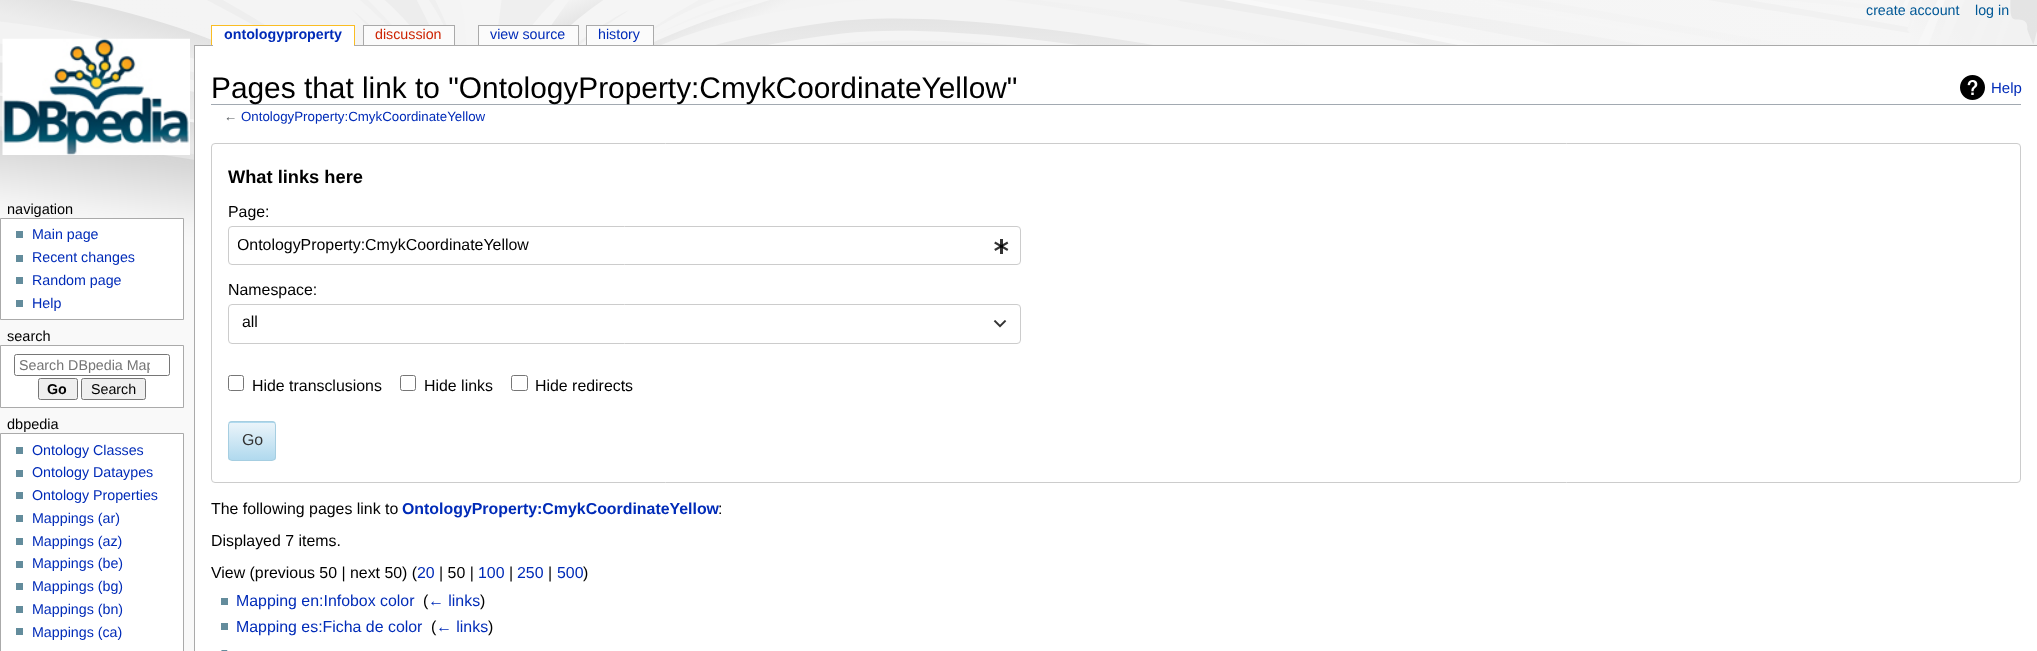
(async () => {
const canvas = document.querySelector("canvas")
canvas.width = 2037
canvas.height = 651
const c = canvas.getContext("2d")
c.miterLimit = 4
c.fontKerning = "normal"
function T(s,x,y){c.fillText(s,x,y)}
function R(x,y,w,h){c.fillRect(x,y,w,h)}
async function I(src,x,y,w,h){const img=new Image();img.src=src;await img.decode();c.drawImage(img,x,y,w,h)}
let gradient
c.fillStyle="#f9f9f9"
R(0,0,2037,651)
await I("1.png",0,0,2037,263)
c.font="14.25px Liberation Sans"
c.fillStyle="#005896"
T("create account",1866,15)
T("log in",1975,15)
c.fillStyle="#aaa"
R(194,45,1843,1)
c.fillStyle="#fff"
R(213,26,141,20)
c.font="bold 14.25px Liberation Sans"
c.fillStyle="#002bb8"
T("ontologyproperty",224,39)
c.fillStyle="#fff"
R(212,26,1,19)
c.fillStyle="#fabd23"
R(211,25,144,1)
R(354,25,1,20)
R(211,25,1,20)
c.fillStyle="#fbfbfb"
R(364,26,90,19)
c.font="14.25px Liberation Sans"
c.fillStyle="#c20"
T("discussion",375,39)
c.fillStyle="#aaa"
R(363,25,92,1)
R(454,25,1,20)
R(363,25,1,20)
c.fillStyle="#fbfbfb"
R(479,26,99,19)
c.fillStyle="#002bb8"
T("view source",490,39)
c.fillStyle="#aaa"
R(478,25,101,1)
R(578,25,1,20)
R(478,25,1,20)
c.fillStyle="#fbfbfb"
R(588,26,65,19)
c.fillStyle="#002bb8"
T("history",598,39)
c.fillStyle="#fff"
R(587,26,1,19)
c.fillStyle="#aaa"
R(586,25,68,1)
R(653,25,1,20)
R(586,25,1,20)
await I("2.png",2,38,188,117)
c.font="14.5px Liberation Sans"
c.fillStyle="#000"
T("navigation",7,214)
c.fillStyle="#fff"
c.beginPath()
c.rect(.5,218.5,183,101)
c.fill()
c.strokeStyle="#aaa"
c.stroke()
c.fillStyle="#638c9c"
R(16,231,7,7)
c.font="14.25px Liberation Sans"
c.fillStyle="#002bb8"
T("Main page",32,239)
c.fillStyle="#638c9c"
R(16,255,7,7)
c.fillStyle="#002bb8"
T("Recent changes",32,262)
c.fillStyle="#638c9c"
R(16,277,7,7)
c.fillStyle="#002bb8"
T("Random page",32,285)
c.fillStyle="#638c9c"
R(16,300,7,7)
c.fillStyle="#002bb8"
T("Help",32,308)
c.font="14.5px Liberation Sans"
c.fillStyle="#000"
T("search",7,341)
c.fillStyle="#fff"
c.beginPath()
c.rect(.5,345.5,183,62)
c.fill()
c.stroke()
c.beginPath()
c.roundRect(14.5,354.5,155,21,2)
c.strokeStyle="#767676"
c.stroke()
c.save()
c.beginPath()
c.rect(19,358,131,15)
c.clip()
c.font="14.25px Liberation Sans"
c.fillStyle="#757575"
T("Search DBpedia Map",19,370)
c.restore()
c.fillStyle="#efefef"
c.beginPath()
c.roundRect(38.5,378.5,39,21,2)
c.fill()
c.stroke()
c.font="bold 14.25px Liberation Sans"
c.fillStyle="#000"
T("Go",47,394)
c.fillStyle="#efefef"
c.beginPath()
c.roundRect(81.5,378.5,64,21,2)
c.fill()
c.stroke()
c.font="14.25px Liberation Sans"
c.fillStyle="#000"
T("Search",91,394)
c.font="14.5px Liberation Sans"
T("dbpedia",7,429)
c.fillStyle="#fff"
c.beginPath()
c.rect(.5,433.5,183,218)
c.fill()
c.strokeStyle="#aaa"
c.stroke()
c.fillStyle="#638c9c"
R(16,447,7,7)
c.font="14.25px Liberation Sans"
c.fillStyle="#002bb8"
T("Ontology Classes",32,455)
c.fillStyle="#638c9c"
R(16,470,7,7)
c.fillStyle="#002bb8"
T("Ontology Dataypes",32,477)
c.fillStyle="#638c9c"
R(16,492,7,7)
c.fillStyle="#002bb8"
T("Ontology Properties",32,500)
c.fillStyle="#638c9c"
R(16,515,7,7)
c.fillStyle="#002bb8"
T("Mappings (ar)",32,523)
c.fillStyle="#638c9c"
R(16,538,7,7)
c.fillStyle="#002bb8"
T("Mappings (az)",32,546)
c.fillStyle="#638c9c"
R(16,561,7,7)
c.fillStyle="#002bb8"
T("Mappings (be)",32,568)
c.fillStyle="#638c9c"
R(16,583,7,7)
c.fillStyle="#002bb8"
T("Mappings (bg)",32,591)
c.fillStyle="#638c9c"
R(16,606,7,7)
c.fillStyle="#002bb8"
T("Mappings (bn)",32,614)
c.fillStyle="#638c9c"
R(16,628,7,7)
c.fillStyle="#002bb8"
T("Mappings (ca)",32,637)
c.fillStyle="#fff"
R(195,46,1842,605)
c.fillStyle="#aaa"
R(194,45,1,606)
c.fillStyle="#a2a9b1"
R(211,104,1810,1)
c.font="29.85px Liberation Sans"
c.fillStyle="#000"
T("Pages that link to \"OntologyProperty:CmykCoordinateYellow\"",211,98)
await I("3.png",1960,75,25,25)
c.font="15px Liberation Sans"
c.fillStyle="#002bb8"
T("Help",1991,93)
c.font="13.3px Liberation Sans"
c.fillStyle="#54595d"
T("←",224,121)
c.fillStyle="#002bb8"
T("OntologyProperty:CmykCoordinateYellow",241,121)
c.beginPath()
c.roundRect(211.5,143.5,1809,339,3.5)
c.strokeStyle="#ccc"
c.stroke()
c.font="bold 18.25px Liberation Sans"
c.fillStyle="#000"
T("What links here",228,183)
c.font="15.9px Liberation Sans"
T("Page:",228,217)
c.beginPath()
c.roundRect(228.5,226.5,792,38,3.5)
c.stroke()
c.save()
c.beginPath()
c.rect(238,235,743,21)
c.clip()
T("OntologyProperty:CmykCoordinateYellow",237,250)
c.restore()
await I("4.png",994,239,15,15)
T("Namespace:",228,295)
c.beginPath()
c.roundRect(228.5,304.5,792,39,3.5)
c.stroke()
T("all",242,327)
await I("5.png",993,320,14,8)
c.beginPath()
c.roundRect(228.5,375.5,15,15,2)
c.strokeStyle="#767676"
c.stroke()
T("Hide transclusions",252,391)
c.beginPath()
c.roundRect(400.5,375.5,15,15,2)
c.stroke()
T("Hide links",424,391)
c.beginPath()
c.roundRect(511.5,375.5,16,15,2)
c.stroke()
T("Hide redirects",535,391)
c.save()
c.beginPath()
c.roundRect(228,421,48,40,4)
c.clip()
gradient = c.createLinearGradient(252,385,252,423)
gradient.addColorStop(0,"#eaf4fa")
gradient.addColorStop(1,"#b0d9ee")
c.fillStyle = gradient
R(228,421,48,2)
gradient = c.createLinearGradient(252,423,252,460)
gradient.addColorStop(0,"#eaf4fa")
gradient.addColorStop(1,"#b0d9ee")
c.fillStyle = gradient
R(228,423,48,37)
c.restore()
c.beginPath()
c.roundRect(228.5,421.5,47,39,3.5)
c.strokeStyle="#a6cee1"
c.stroke()
c.fillStyle="#333"
T("Go",242,445)
c.fillStyle="#000"
T("The following pages link to",211,514)
c.font="bold 15.9px Liberation Sans"
c.fillStyle="#002bb8"
T("OntologyProperty:CmykCoordinateYellow",402,514)
c.font="15.9px Liberation Sans"
c.fillStyle="#000"
T(":",718,514)
T("Displayed 7 items.",211,546)
T("View (previous 50 | next 50) (",211,578)
c.fillStyle="#002bb8"
T("20",417,578)
c.fillStyle="#000"
T("| 50 |",439,578)
c.fillStyle="#002bb8"
T("100",478,578)
c.fillStyle="#000"
T("|",509,578)
c.fillStyle="#002bb8"
T("250",517,578)
c.fillStyle="#000"
T("|",548,578)
c.fillStyle="#002bb8"
T("500",557,578)
c.fillStyle="#000"
T(")",583,578)
c.fillStyle="#638c9c"
R(221,598,7,7)
c.fillStyle="#002bb8"
T("Mapping en:Infobox color",236,606)
c.fillStyle="#000"
T("(",423,606)
c.fillStyle="#002bb8"
T("← links",428,606)
c.fillStyle="#000"
T(")",480,606)
c.fillStyle="#638c9c"
R(221,623,7,7)
c.fillStyle="#002bb8"
T("Mapping es:Ficha de color",236,632)
c.fillStyle="#000"
T("(",431,632)
c.fillStyle="#002bb8"
T("← links",436,632)
c.fillStyle="#000"
T(")",488,632)
await I("6.png",221,650,7,1)
})()
